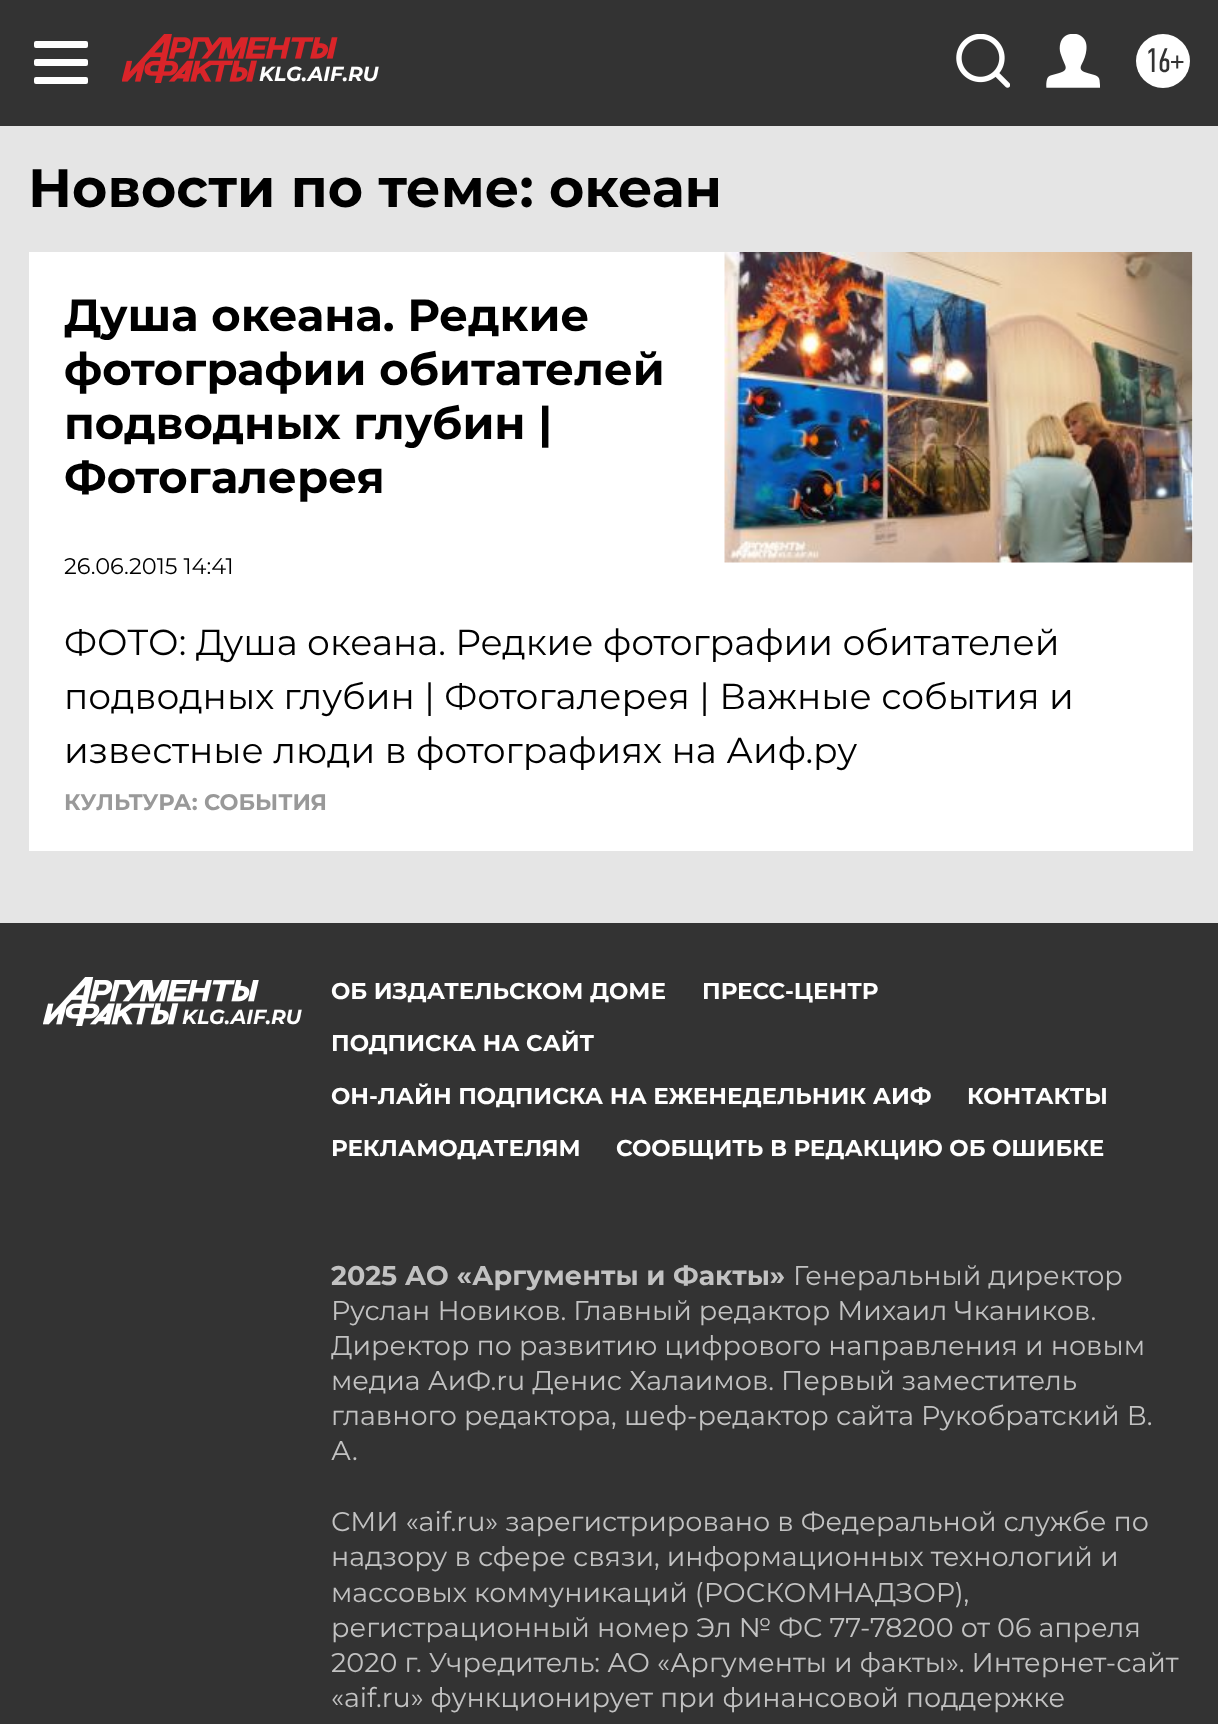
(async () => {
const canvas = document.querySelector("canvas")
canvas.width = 1218
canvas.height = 1724
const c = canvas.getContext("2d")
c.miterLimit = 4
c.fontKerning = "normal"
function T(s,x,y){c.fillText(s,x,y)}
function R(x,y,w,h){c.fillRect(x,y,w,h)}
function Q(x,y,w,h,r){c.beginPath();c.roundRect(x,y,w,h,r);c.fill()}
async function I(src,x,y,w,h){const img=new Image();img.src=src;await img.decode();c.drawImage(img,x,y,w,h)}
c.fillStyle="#e5e5e5"
R(0,0,1218,1724)
c.fillStyle="#333"
R(0,0,1218,126)
c.fillStyle="#fff"
Q(34,41,54,7,2)
Q(34,59,54,7,2)
Q(34,77,54,7,2)
await I("1.png",122,34,216,49)
c.font="italic bold 20.25px Montserrat"
T("KLG.AIF.RU",259,81)
await I("2.png",956,34,54,54)
await I("3.png",1046,34,54,54)
c.beginPath()
c.arc(1163,61,27,0,7)
c.fill()
c.font="34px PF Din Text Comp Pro"
c.fillStyle="#333"
T("16+",1145,72)
c.font="bold 54px Montserrat"
c.fillStyle="#000"
T("Новости по теме: океан",28,207)
c.fillStyle="#fff"
R(29,252,1164,599)
await I("4.png",724,252,469,311)
c.font="bold 45px Montserrat"
c.fillStyle="#000"
T("Душа океана. Редкие",64,331)
T("фотографии обитателей",64,385)
T("подводных глубин |",64,439)
T("Фотогалерея",64,493)
c.font="22.5px Montserrat"
T("26.06.2015 14:41",64,574)
c.font="36px Montserrat"
T("ФОТО: Душа океана. Редкие фотографии обитателей",64,655)
T("подводных глубин | Фотогалерея | Важные события и",64,709)
T("известные люди в фотографиях на Аиф.ру",64,763)
c.font="bold 22.5px Montserrat"
c.fillStyle="#999"
T("КУЛЬТУРА: СОБЫТИЯ",64,810)
c.fillStyle="#333"
R(0,923,1218,801)
await I("5.png",43,977,216,49)
c.font="italic bold 20.25px Montserrat"
c.fillStyle="#fff"
T("KLG.AIF.RU",182,1024)
c.font="bold 22.95px Montserrat"
T("ОБ ИЗДАТЕЛЬСКОМ ДОМЕ",331,999)
T("ПРЕСС-ЦЕНТР",702,999)
T("ПОДПИСКА НА САЙТ",331,1051)
T("ОН-ЛАЙН ПОДПИСКА НА ЕЖЕНЕДЕЛЬНИК АИФ",331,1104)
T("КОНТАКТЫ",967,1104)
T("РЕКЛАМОДАТЕЛЯМ",331,1156)
T("СООБЩИТЬ В РЕДАКЦИЮ ОБ ОШИБКЕ",616,1156)
c.font="bold 27px Montserrat"
c.fillStyle="#c2c2c2"
T("2025 АО «Аргументы и Факты»",331,1285)
c.font="27px Montserrat"
T("Генеральный директор",793,1285)
T("Руслан Новиков. Главный редактор Михаил Чкаников.",331,1320)
T("Директор по развитию цифрового направления и новым",331,1355)
T("медиа АиФ.ru Денис Халаимов. Первый заместитель",331,1390)
T("главного редактора, шеф-редактор сайта Рукобратский В.",331,1425)
T("А.",331,1460)
T("СМИ «aif.ru» зарегистрировано в Федеральной службе по",331,1531)
T("надзору в сфере связи, информационных технологий и",331,1566)
T("массовых коммуникаций (РОСКОМНАДЗОР),",331,1602)
T("регистрационный номер Эл № ФС 77-78200 от 06 апреля",331,1637)
T("2020 г. Учредитель: АО «Аргументы и факты». Интернет-сайт",331,1672)
T("«aif.ru» функционирует при финансовой поддержке",331,1707)
})()
